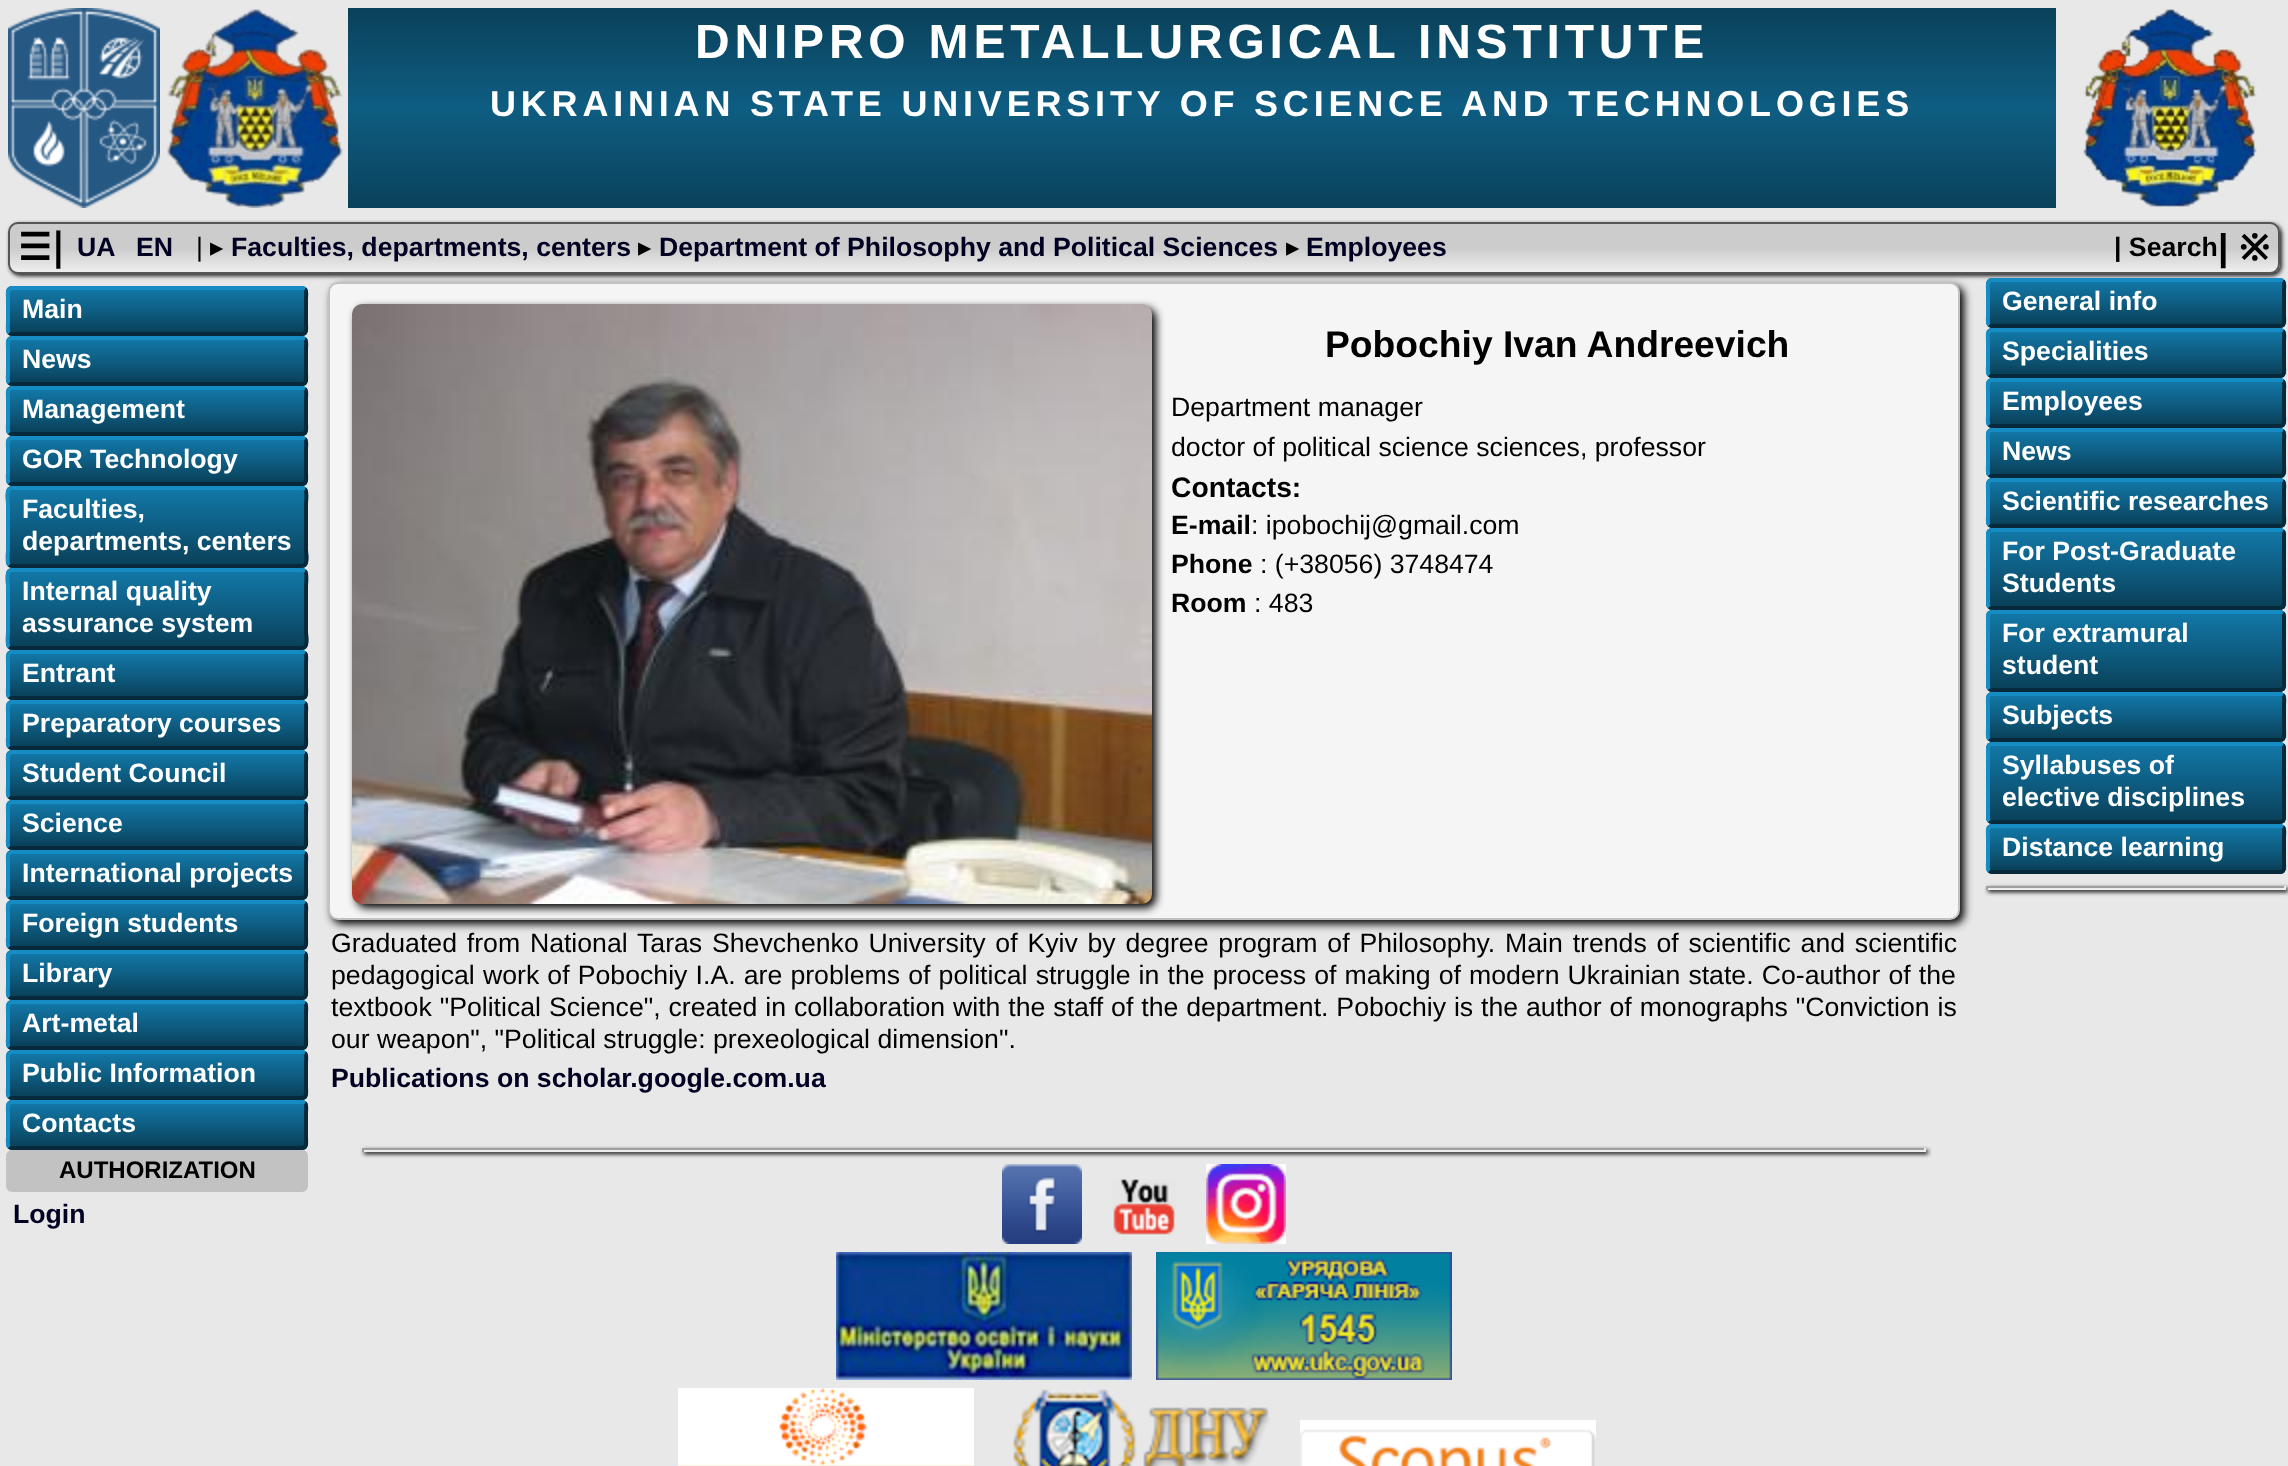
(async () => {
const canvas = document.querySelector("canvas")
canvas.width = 2288
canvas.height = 1466
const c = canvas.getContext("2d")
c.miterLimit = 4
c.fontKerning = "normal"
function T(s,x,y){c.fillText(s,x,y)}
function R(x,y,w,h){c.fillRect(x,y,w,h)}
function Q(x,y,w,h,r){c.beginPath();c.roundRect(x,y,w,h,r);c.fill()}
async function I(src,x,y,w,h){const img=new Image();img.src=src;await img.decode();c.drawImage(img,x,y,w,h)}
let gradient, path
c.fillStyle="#e8e8e8"
R(0,0,2288,1466)
gradient = c.createLinearGradient(1144,8,1144,208)
gradient.addColorStop(0,"#0a415a")
gradient.addColorStop(.5,"#0e5d82")
gradient.addColorStop(1,"#0a415a")
c.fillStyle = gradient
R(348,8,1708,200)
await I("1.png",8,8,152,200)
await I("2.png",167,9,176,199)
c.letterSpacing="4.8px"
c.font="bold 48px Liberation Sans"
c.fillStyle="#fff"
T("DNIPRO METALLURGICAL INSTITUTE",695,58)
c.font="bold 36px Liberation Sans"
T("UKRAINIAN STATE UNIVERSITY OF SCIENCE AND TECHNOLOGIES",490,116)
await I("3.png",2083,9,174,199)
c.fillStyle="#222"
c.filter="blur(2px)"
c.beginPath()
c.roundRect(10,224,2272,52,10)
c.fill()
c.filter="none"
c.save()
c.beginPath()
c.roundRect(8,222,2272,52,10)
c.clip()
gradient = c.createLinearGradient(1144,224,1144,272)
gradient.addColorStop(0,"#ccc")
gradient.addColorStop(.5,"#ccc")
gradient.addColorStop(1,"#eee")
c.fillStyle = gradient
R(8,224,2272,48)
c.restore()
c.beginPath()
c.roundRect(9,223,2270,50,9)
c.strokeStyle="#555"
c.lineWidth=2
c.stroke()
c.letterSpacing="0px"
c.font="bold 37.25px DejaVu Sans"
c.fillStyle="#000"
T("☰|",18,260)
c.font="bold 26.67px Liberation Sans"
c.fillStyle="#002"
T("UA",77,256)
T("EN",136,256)
c.font="26.67px Liberation Sans"
c.fillStyle="#000"
T("|",196,256)
c.font="26.67px DejaVu Sans"
T("▸",210,256)
c.font="bold 26.67px Liberation Sans"
c.fillStyle="#002"
T("Faculties, departments, centers",231,256)
c.font="26.67px DejaVu Sans"
c.fillStyle="#000"
T("▸",638,256)
c.font="bold 26.67px Liberation Sans"
c.fillStyle="#002"
T("Department of Philosophy and Political Sciences",659,256)
c.font="26.67px DejaVu Sans"
c.fillStyle="#000"
T("▸",1286,256)
c.font="bold 26.67px Liberation Sans"
c.fillStyle="#002"
T("Employees",1306,256)
c.fillStyle="#000"
T("| Search",2114,256)
c.font="bold 37.25px Liberation Sans"
T("|",2218,260)
c.font="bold 37.25px Noto Sans"
T("※",2239,260)
c.save()
c.beginPath()
c.roundRect(6,286,302,50,6)
c.clip()
gradient = c.createLinearGradient(157,248,157,290)
gradient.addColorStop(0,"#1277a6")
gradient.addColorStop(.5,"#0e5d82")
gradient.addColorStop(1,"#0a415a")
c.fillStyle = gradient
R(6,286,302,4)
gradient = c.createLinearGradient(157,290,157,332)
gradient.addColorStop(0,"#1277a6")
gradient.addColorStop(.5,"#0e5d82")
gradient.addColorStop(1,"#0a415a")
c.fillStyle = gradient
R(6,290,302,42)
gradient = c.createLinearGradient(157,332,157,374)
gradient.addColorStop(0,"#1277a6")
gradient.addColorStop(.5,"#0e5d82")
gradient.addColorStop(1,"#0a415a")
c.fillStyle = gradient
R(6,332,302,4)
c.restore()
path = new Path2D("M305 289c2 2.5 1 7 1 9.5v25c0 3 1.5 10.5-4 10.5h-290.5l-2.5-1")
c.strokeStyle="#062a3b"
c.lineWidth=4
c.stroke(path)
path = new Path2D("M9 333c-2-2.5-1-7-1-9.5v-25c0-3-1.5-10.5 4-10.5h290.5l2.5 1")
c.strokeStyle="#158cc3"
c.stroke(path)
c.font="bold 26.67px Liberation Sans"
c.fillStyle="#fff"
T("Main",22,318)
c.save()
c.beginPath()
c.roundRect(6,336,302,50,6)
c.clip()
gradient = c.createLinearGradient(157,298,157,340)
gradient.addColorStop(0,"#1277a6")
gradient.addColorStop(.5,"#0e5d82")
gradient.addColorStop(1,"#0a415a")
c.fillStyle = gradient
R(6,336,302,4)
gradient = c.createLinearGradient(157,340,157,382)
gradient.addColorStop(0,"#1277a6")
gradient.addColorStop(.5,"#0e5d82")
gradient.addColorStop(1,"#0a415a")
c.fillStyle = gradient
R(6,340,302,42)
gradient = c.createLinearGradient(157,382,157,424)
gradient.addColorStop(0,"#1277a6")
gradient.addColorStop(.5,"#0e5d82")
gradient.addColorStop(1,"#0a415a")
c.fillStyle = gradient
R(6,382,302,4)
c.restore()
path = new Path2D("M305 339c2 2.5 1 7 1 9.5v25c0 3 1.5 10.5-4 10.5h-290.5l-2.5-1")
c.strokeStyle="#062a3b"
c.stroke(path)
path = new Path2D("M9 383c-2-2.5-1-7-1-9.5v-25c0-3-1.5-10.5 4-10.5h290.5l2.5 1")
c.strokeStyle="#158cc3"
c.stroke(path)
T("News",22,368)
c.save()
c.beginPath()
c.roundRect(6,386,302,50,6)
c.clip()
gradient = c.createLinearGradient(157,348,157,390)
gradient.addColorStop(0,"#1277a6")
gradient.addColorStop(.5,"#0e5d82")
gradient.addColorStop(1,"#0a415a")
c.fillStyle = gradient
R(6,386,302,4)
gradient = c.createLinearGradient(157,390,157,432)
gradient.addColorStop(0,"#1277a6")
gradient.addColorStop(.5,"#0e5d82")
gradient.addColorStop(1,"#0a415a")
c.fillStyle = gradient
R(6,390,302,42)
gradient = c.createLinearGradient(157,432,157,474)
gradient.addColorStop(0,"#1277a6")
gradient.addColorStop(.5,"#0e5d82")
gradient.addColorStop(1,"#0a415a")
c.fillStyle = gradient
R(6,432,302,4)
c.restore()
path = new Path2D("M305 389c2 2.5 1 7 1 9.5v25c0 3 1.5 10.5-4 10.5h-290.5l-2.5-1")
c.strokeStyle="#062a3b"
c.stroke(path)
path = new Path2D("M9 433c-2-2.5-1-7-1-9.5v-25c0-3-1.5-10.5 4-10.5h290.5l2.5 1")
c.strokeStyle="#158cc3"
c.stroke(path)
T("Management",22,418)
c.save()
c.beginPath()
c.roundRect(6,436,302,50,6)
c.clip()
gradient = c.createLinearGradient(157,398,157,440)
gradient.addColorStop(0,"#1277a6")
gradient.addColorStop(.5,"#0e5d82")
gradient.addColorStop(1,"#0a415a")
c.fillStyle = gradient
R(6,436,302,4)
gradient = c.createLinearGradient(157,440,157,482)
gradient.addColorStop(0,"#1277a6")
gradient.addColorStop(.5,"#0e5d82")
gradient.addColorStop(1,"#0a415a")
c.fillStyle = gradient
R(6,440,302,42)
gradient = c.createLinearGradient(157,482,157,524)
gradient.addColorStop(0,"#1277a6")
gradient.addColorStop(.5,"#0e5d82")
gradient.addColorStop(1,"#0a415a")
c.fillStyle = gradient
R(6,482,302,4)
c.restore()
path = new Path2D("M305 439c2 2.5 1 7 1 9.5v25c0 3 1.5 10.5-4 10.5h-290.5l-2.5-1")
c.strokeStyle="#062a3b"
c.stroke(path)
path = new Path2D("M9 483c-2-2.5-1-7-1-9.5v-25c0-3-1.5-10.5 4-10.5h290.5l2.5 1")
c.strokeStyle="#158cc3"
c.stroke(path)
T("GOR Technology",22,468)
c.save()
c.beginPath()
c.roundRect(6,486,302,82,6)
c.clip()
gradient = c.createLinearGradient(157,416,157,490)
gradient.addColorStop(0,"#1277a6")
gradient.addColorStop(.5,"#0e5d82")
gradient.addColorStop(1,"#0a415a")
c.fillStyle = gradient
R(6,486,302,4)
gradient = c.createLinearGradient(157,490,157,564)
gradient.addColorStop(0,"#1277a6")
gradient.addColorStop(.5,"#0e5d82")
gradient.addColorStop(1,"#0a415a")
c.fillStyle = gradient
R(6,490,302,74)
gradient = c.createLinearGradient(157,564,157,638)
gradient.addColorStop(0,"#1277a6")
gradient.addColorStop(.5,"#0e5d82")
gradient.addColorStop(1,"#0a415a")
c.fillStyle = gradient
R(6,564,302,4)
c.restore()
path = new Path2D("M305 489c2.5 3 1 13.5 1 14.5v47c0 1.5 3 15.5-4 15.5h-290l-3-1")
c.strokeStyle="#062a3b"
c.stroke(path)
path = new Path2D("M9 565c-2.5-3-1-13.5-1-14.5v-47c0-1.5-3-15.5 4-15.5h290l3 1")
c.strokeStyle="#158cc3"
c.stroke(path)
T("Faculties,",22,518)
T("departments, centers",22,550)
c.save()
c.beginPath()
c.roundRect(6,568,302,82,6)
c.clip()
gradient = c.createLinearGradient(157,498,157,572)
gradient.addColorStop(0,"#1277a6")
gradient.addColorStop(.5,"#0e5d82")
gradient.addColorStop(1,"#0a415a")
c.fillStyle = gradient
R(6,568,302,4)
gradient = c.createLinearGradient(157,572,157,646)
gradient.addColorStop(0,"#1277a6")
gradient.addColorStop(.5,"#0e5d82")
gradient.addColorStop(1,"#0a415a")
c.fillStyle = gradient
R(6,572,302,74)
gradient = c.createLinearGradient(157,646,157,720)
gradient.addColorStop(0,"#1277a6")
gradient.addColorStop(.5,"#0e5d82")
gradient.addColorStop(1,"#0a415a")
c.fillStyle = gradient
R(6,646,302,4)
c.restore()
path = new Path2D("M305 571c2.5 3 1 13.5 1 14.5v47c0 1.5 3 15.5-4 15.5h-290l-3-1")
c.strokeStyle="#062a3b"
c.stroke(path)
path = new Path2D("M9 647c-2.5-3-1-13.5-1-14.5v-47c0-1.5-3-15.5 4-15.5h290l3 1")
c.strokeStyle="#158cc3"
c.stroke(path)
T("Internal quality",22,600)
T("assurance system",22,632)
c.save()
c.beginPath()
c.roundRect(6,650,302,50,6)
c.clip()
gradient = c.createLinearGradient(157,612,157,654)
gradient.addColorStop(0,"#1277a6")
gradient.addColorStop(.5,"#0e5d82")
gradient.addColorStop(1,"#0a415a")
c.fillStyle = gradient
R(6,650,302,4)
gradient = c.createLinearGradient(157,654,157,696)
gradient.addColorStop(0,"#1277a6")
gradient.addColorStop(.5,"#0e5d82")
gradient.addColorStop(1,"#0a415a")
c.fillStyle = gradient
R(6,654,302,42)
gradient = c.createLinearGradient(157,696,157,738)
gradient.addColorStop(0,"#1277a6")
gradient.addColorStop(.5,"#0e5d82")
gradient.addColorStop(1,"#0a415a")
c.fillStyle = gradient
R(6,696,302,4)
c.restore()
path = new Path2D("M305 653c2 2.5 1 7 1 9.5v25c0 3 1.5 10.5-4 10.5h-290.5l-2.5-1")
c.strokeStyle="#062a3b"
c.stroke(path)
path = new Path2D("M9 697c-2-2.5-1-7-1-9.5v-25c0-3-1.5-10.5 4-10.5h290.5l2.5 1")
c.strokeStyle="#158cc3"
c.stroke(path)
T("Entrant",22,682)
c.save()
c.beginPath()
c.roundRect(6,700,302,50,6)
c.clip()
gradient = c.createLinearGradient(157,662,157,704)
gradient.addColorStop(0,"#1277a6")
gradient.addColorStop(.5,"#0e5d82")
gradient.addColorStop(1,"#0a415a")
c.fillStyle = gradient
R(6,700,302,4)
gradient = c.createLinearGradient(157,704,157,746)
gradient.addColorStop(0,"#1277a6")
gradient.addColorStop(.5,"#0e5d82")
gradient.addColorStop(1,"#0a415a")
c.fillStyle = gradient
R(6,704,302,42)
gradient = c.createLinearGradient(157,746,157,788)
gradient.addColorStop(0,"#1277a6")
gradient.addColorStop(.5,"#0e5d82")
gradient.addColorStop(1,"#0a415a")
c.fillStyle = gradient
R(6,746,302,4)
c.restore()
path = new Path2D("M305 703c2 2.5 1 7 1 9.5v25c0 3 1.5 10.5-4 10.5h-290.5l-2.5-1")
c.strokeStyle="#062a3b"
c.stroke(path)
path = new Path2D("M9 747c-2-2.5-1-7-1-9.5v-25c0-3-1.5-10.5 4-10.5h290.5l2.5 1")
c.strokeStyle="#158cc3"
c.stroke(path)
T("Preparatory courses",22,732)
c.save()
c.beginPath()
c.roundRect(6,750,302,50,6)
c.clip()
gradient = c.createLinearGradient(157,712,157,754)
gradient.addColorStop(0,"#1277a6")
gradient.addColorStop(.5,"#0e5d82")
gradient.addColorStop(1,"#0a415a")
c.fillStyle = gradient
R(6,750,302,4)
gradient = c.createLinearGradient(157,754,157,796)
gradient.addColorStop(0,"#1277a6")
gradient.addColorStop(.5,"#0e5d82")
gradient.addColorStop(1,"#0a415a")
c.fillStyle = gradient
R(6,754,302,42)
gradient = c.createLinearGradient(157,796,157,838)
gradient.addColorStop(0,"#1277a6")
gradient.addColorStop(.5,"#0e5d82")
gradient.addColorStop(1,"#0a415a")
c.fillStyle = gradient
R(6,796,302,4)
c.restore()
path = new Path2D("M305 753c2 2.5 1 7 1 9.5v25c0 3 1.5 10.5-4 10.5h-290.5l-2.5-1")
c.strokeStyle="#062a3b"
c.stroke(path)
path = new Path2D("M9 797c-2-2.5-1-7-1-9.5v-25c0-3-1.5-10.5 4-10.5h290.5l2.5 1")
c.strokeStyle="#158cc3"
c.stroke(path)
T("Student Council",22,782)
c.save()
c.beginPath()
c.roundRect(6,800,302,50,6)
c.clip()
gradient = c.createLinearGradient(157,762,157,804)
gradient.addColorStop(0,"#1277a6")
gradient.addColorStop(.5,"#0e5d82")
gradient.addColorStop(1,"#0a415a")
c.fillStyle = gradient
R(6,800,302,4)
gradient = c.createLinearGradient(157,804,157,846)
gradient.addColorStop(0,"#1277a6")
gradient.addColorStop(.5,"#0e5d82")
gradient.addColorStop(1,"#0a415a")
c.fillStyle = gradient
R(6,804,302,42)
gradient = c.createLinearGradient(157,846,157,888)
gradient.addColorStop(0,"#1277a6")
gradient.addColorStop(.5,"#0e5d82")
gradient.addColorStop(1,"#0a415a")
c.fillStyle = gradient
R(6,846,302,4)
c.restore()
path = new Path2D("M305 803c2 2.5 1 7 1 9.5v25c0 3 1.5 10.5-4 10.5h-290.5l-2.5-1")
c.strokeStyle="#062a3b"
c.stroke(path)
path = new Path2D("M9 847c-2-2.5-1-7-1-9.5v-25c0-3-1.5-10.5 4-10.5h290.5l2.5 1")
c.strokeStyle="#158cc3"
c.stroke(path)
T("Science",22,832)
c.save()
c.beginPath()
c.roundRect(6,850,302,50,6)
c.clip()
gradient = c.createLinearGradient(157,812,157,854)
gradient.addColorStop(0,"#1277a6")
gradient.addColorStop(.5,"#0e5d82")
gradient.addColorStop(1,"#0a415a")
c.fillStyle = gradient
R(6,850,302,4)
gradient = c.createLinearGradient(157,854,157,896)
gradient.addColorStop(0,"#1277a6")
gradient.addColorStop(.5,"#0e5d82")
gradient.addColorStop(1,"#0a415a")
c.fillStyle = gradient
R(6,854,302,42)
gradient = c.createLinearGradient(157,896,157,938)
gradient.addColorStop(0,"#1277a6")
gradient.addColorStop(.5,"#0e5d82")
gradient.addColorStop(1,"#0a415a")
c.fillStyle = gradient
R(6,896,302,4)
c.restore()
path = new Path2D("M305 853c2 2.5 1 7 1 9.5v25c0 3 1.5 10.5-4 10.5h-290.5l-2.5-1")
c.strokeStyle="#062a3b"
c.stroke(path)
path = new Path2D("M9 897c-2-2.5-1-7-1-9.5v-25c0-3-1.5-10.5 4-10.5h290.5l2.5 1")
c.strokeStyle="#158cc3"
c.stroke(path)
T("International projects",22,882)
c.save()
c.beginPath()
c.roundRect(6,900,302,50,6)
c.clip()
gradient = c.createLinearGradient(157,862,157,904)
gradient.addColorStop(0,"#1277a6")
gradient.addColorStop(.5,"#0e5d82")
gradient.addColorStop(1,"#0a415a")
c.fillStyle = gradient
R(6,900,302,4)
gradient = c.createLinearGradient(157,904,157,946)
gradient.addColorStop(0,"#1277a6")
gradient.addColorStop(.5,"#0e5d82")
gradient.addColorStop(1,"#0a415a")
c.fillStyle = gradient
R(6,904,302,42)
gradient = c.createLinearGradient(157,946,157,988)
gradient.addColorStop(0,"#1277a6")
gradient.addColorStop(.5,"#0e5d82")
gradient.addColorStop(1,"#0a415a")
c.fillStyle = gradient
R(6,946,302,4)
c.restore()
path = new Path2D("M305 903c2 2.5 1 7 1 9.5v25c0 3 1.5 10.5-4 10.5h-290.5l-2.5-1")
c.strokeStyle="#062a3b"
c.stroke(path)
path = new Path2D("M9 947c-2-2.5-1-7-1-9.5v-25c0-3-1.5-10.5 4-10.5h290.5l2.5 1")
c.strokeStyle="#158cc3"
c.stroke(path)
T("Foreign students",22,932)
c.save()
c.beginPath()
c.roundRect(6,950,302,50,6)
c.clip()
gradient = c.createLinearGradient(157,912,157,954)
gradient.addColorStop(0,"#1277a6")
gradient.addColorStop(.5,"#0e5d82")
gradient.addColorStop(1,"#0a415a")
c.fillStyle = gradient
R(6,950,302,4)
gradient = c.createLinearGradient(157,954,157,996)
gradient.addColorStop(0,"#1277a6")
gradient.addColorStop(.5,"#0e5d82")
gradient.addColorStop(1,"#0a415a")
c.fillStyle = gradient
R(6,954,302,42)
gradient = c.createLinearGradient(157,996,157,1038)
gradient.addColorStop(0,"#1277a6")
gradient.addColorStop(.5,"#0e5d82")
gradient.addColorStop(1,"#0a415a")
c.fillStyle = gradient
R(6,996,302,4)
c.restore()
path = new Path2D("M305 953c2 2.5 1 7 1 9.5v25c0 3 1.5 10.5-4 10.5h-290.5l-2.5-1")
c.strokeStyle="#062a3b"
c.stroke(path)
path = new Path2D("M9 997c-2-2.5-1-7-1-9.5v-25c0-3-1.5-10.5 4-10.5h290.5l2.5 1")
c.strokeStyle="#158cc3"
c.stroke(path)
T("Library",22,982)
c.save()
c.beginPath()
c.roundRect(6,1000,302,50,6)
c.clip()
gradient = c.createLinearGradient(157,962,157,1004)
gradient.addColorStop(0,"#1277a6")
gradient.addColorStop(.5,"#0e5d82")
gradient.addColorStop(1,"#0a415a")
c.fillStyle = gradient
R(6,1000,302,4)
gradient = c.createLinearGradient(157,1004,157,1046)
gradient.addColorStop(0,"#1277a6")
gradient.addColorStop(.5,"#0e5d82")
gradient.addColorStop(1,"#0a415a")
c.fillStyle = gradient
R(6,1004,302,42)
gradient = c.createLinearGradient(157,1046,157,1088)
gradient.addColorStop(0,"#1277a6")
gradient.addColorStop(.5,"#0e5d82")
gradient.addColorStop(1,"#0a415a")
c.fillStyle = gradient
R(6,1046,302,4)
c.restore()
path = new Path2D("M305 1003c2 2.5 1 7 1 9.5v25c0 3 1.5 10.5-4 10.5h-290.5l-2.5-1")
c.strokeStyle="#062a3b"
c.stroke(path)
path = new Path2D("M9 1047c-2-2.5-1-7-1-9.5v-25c0-3-1.5-10.5 4-10.5h290.5l2.5 1")
c.strokeStyle="#158cc3"
c.stroke(path)
T("Art-metal",22,1032)
c.save()
c.beginPath()
c.roundRect(6,1050,302,50,6)
c.clip()
gradient = c.createLinearGradient(157,1012,157,1054)
gradient.addColorStop(0,"#1277a6")
gradient.addColorStop(.5,"#0e5d82")
gradient.addColorStop(1,"#0a415a")
c.fillStyle = gradient
R(6,1050,302,4)
gradient = c.createLinearGradient(157,1054,157,1096)
gradient.addColorStop(0,"#1277a6")
gradient.addColorStop(.5,"#0e5d82")
gradient.addColorStop(1,"#0a415a")
c.fillStyle = gradient
R(6,1054,302,42)
gradient = c.createLinearGradient(157,1096,157,1138)
gradient.addColorStop(0,"#1277a6")
gradient.addColorStop(.5,"#0e5d82")
gradient.addColorStop(1,"#0a415a")
c.fillStyle = gradient
R(6,1096,302,4)
c.restore()
path = new Path2D("M305 1053c2 2.5 1 7 1 9.5v25c0 3 1.5 10.5-4 10.5h-290.5l-2.5-1")
c.strokeStyle="#062a3b"
c.stroke(path)
path = new Path2D("M9 1097c-2-2.5-1-7-1-9.5v-25c0-3-1.5-10.5 4-10.5h290.5l2.5 1")
c.strokeStyle="#158cc3"
c.stroke(path)
T("Public Information",22,1082)
c.save()
c.beginPath()
c.roundRect(6,1100,302,50,6)
c.clip()
gradient = c.createLinearGradient(157,1062,157,1104)
gradient.addColorStop(0,"#1277a6")
gradient.addColorStop(.5,"#0e5d82")
gradient.addColorStop(1,"#0a415a")
c.fillStyle = gradient
R(6,1100,302,4)
gradient = c.createLinearGradient(157,1104,157,1146)
gradient.addColorStop(0,"#1277a6")
gradient.addColorStop(.5,"#0e5d82")
gradient.addColorStop(1,"#0a415a")
c.fillStyle = gradient
R(6,1104,302,42)
gradient = c.createLinearGradient(157,1146,157,1188)
gradient.addColorStop(0,"#1277a6")
gradient.addColorStop(.5,"#0e5d82")
gradient.addColorStop(1,"#0a415a")
c.fillStyle = gradient
R(6,1146,302,4)
c.restore()
path = new Path2D("M305 1103c2 2.5 1 7 1 9.5v25c0 3 1.5 10.5-4 10.5h-290.5l-2.5-1")
c.strokeStyle="#062a3b"
c.stroke(path)
path = new Path2D("M9 1147c-2-2.5-1-7-1-9.5v-25c0-3-1.5-10.5 4-10.5h290.5l2.5 1")
c.strokeStyle="#158cc3"
c.stroke(path)
T("Contacts",22,1132)
c.fillStyle="#c2c2c2"
Q(6,1150,302,42,6)
c.font="bold 24px Liberation Sans"
c.fillStyle="#000"
T("AUTHORIZATION",59,1178)
c.font="bold 26.67px Liberation Sans"
c.fillStyle="#002"
T("Login",13,1223)
c.fillStyle="#000"
c.filter="blur(4px)"
c.beginPath()
c.roundRect(332,286,1632,638,10)
c.fill()
c.filter="none"
c.fillStyle="#f5f5f5"
c.beginPath()
c.roundRect(329,283,1630,636,9)
c.fill()
c.strokeStyle="#c2c2c2"
c.lineWidth=2
c.stroke()
c.fillStyle="#000"
c.filter="blur(4px)"
c.beginPath()
c.roundRect(356,308,800,600,10)
c.fill()
c.filter="none"
await I("4.png",352,304,800,600)
c.font="bold 37.25px Liberation Sans"
T("Pobochiy Ivan Andreevich",1325,357)
c.font="26.67px Liberation Sans"
T("Department manager",1171,416)
T("doctor of political science sciences, professor",1171,456)
c.font="bold 28.25px Liberation Sans"
T("Contacts:",1171,497)
c.font="bold 26.67px Liberation Sans"
T("E-mail",1171,534)
c.font="26.67px Liberation Sans"
T(": ipobochij@gmail.com",1251,534)
c.font="bold 26.67px Liberation Sans"
T("Phone",1171,573)
c.font="26.67px Liberation Sans"
T(": (+38056) 3748474",1260,573)
c.font="bold 26.67px Liberation Sans"
T("Room",1171,612)
c.font="26.67px Liberation Sans"
T(": 483",1254,612)
c.wordSpacing="2.4px"
T("Graduated from National Taras Shevchenko University of Kyiv by degree program of Philosophy. Main trends of scientific and scientific",331,952)
c.wordSpacing="0.75px"
T("pedagogical work of Pobochiy I.A. are problems of political struggle in the process of making of modern Ukrainian state. Co-author of the",331,984)
c.wordSpacing="0.5px"
T("textbook \"Political Science\", created in collaboration with the staff of the department. Pobochiy is the author of monographs \"Conviction is",331,1016)
c.wordSpacing="0px"
T("our weapon\", \"Political struggle: prexeological dimension\".",331,1048)
c.font="bold 26.67px Liberation Sans"
c.fillStyle="#002"
T("Publications on scholar.google.com.ua",331,1087)
c.fillStyle="#000"
c.filter="blur(2px)"
c.beginPath()
c.rect(364,1150,1564,4)
c.fill()
c.filter="none"
c.fillStyle="#9f9f9f"
R(362,1148,1564,2)
c.fillStyle="#eee"
R(1924,1148,2,4)
R(362,1150,1564,2)
c.fillStyle="#9f9f9f"
R(362,1148,2,4)
await I("5.png",1002,1164,80,80)
await I("6.png",1112,1179,64,57)
await I("7.png",1206,1164,80,80)
await I("8.png",836,1252,296,128)
await I("9.png",1156,1252,296,128)
await I("10.png",678,1388,296,78)
await I("11.png",1013,1389,257,77)
await I("12.png",1300,1420,296,46)
c.save()
c.beginPath()
c.roundRect(1986,278,300,50,6)
c.clip()
gradient = c.createLinearGradient(2136,240,2136,282)
gradient.addColorStop(0,"#1277a6")
gradient.addColorStop(.5,"#0e5d82")
gradient.addColorStop(1,"#0a415a")
c.fillStyle = gradient
R(1986,278,300,4)
gradient = c.createLinearGradient(2136,282,2136,324)
gradient.addColorStop(0,"#1277a6")
gradient.addColorStop(.5,"#0e5d82")
gradient.addColorStop(1,"#0a415a")
c.fillStyle = gradient
R(1986,282,300,42)
gradient = c.createLinearGradient(2136,324,2136,366)
gradient.addColorStop(0,"#1277a6")
gradient.addColorStop(.5,"#0e5d82")
gradient.addColorStop(1,"#0a415a")
c.fillStyle = gradient
R(1986,324,300,4)
c.restore()
path = new Path2D("M2283 281c2 2.5 1 7 1 9.5v25c0 3 1.5 10.5-4 10.5h-288.5l-2.5-1")
c.strokeStyle="#062a3b"
c.lineWidth=4
c.stroke(path)
path = new Path2D("M1989 325c-2-2.5-1-7-1-9.5v-25c0-3-1.5-10.5 4-10.5h288.5l2.5 1")
c.strokeStyle="#158cc3"
c.stroke(path)
c.fillStyle="#fff"
T("General info",2002,310)
c.save()
c.beginPath()
c.roundRect(1986,328,300,50,6)
c.clip()
gradient = c.createLinearGradient(2136,290,2136,332)
gradient.addColorStop(0,"#1277a6")
gradient.addColorStop(.5,"#0e5d82")
gradient.addColorStop(1,"#0a415a")
c.fillStyle = gradient
R(1986,328,300,4)
gradient = c.createLinearGradient(2136,332,2136,374)
gradient.addColorStop(0,"#1277a6")
gradient.addColorStop(.5,"#0e5d82")
gradient.addColorStop(1,"#0a415a")
c.fillStyle = gradient
R(1986,332,300,42)
gradient = c.createLinearGradient(2136,374,2136,416)
gradient.addColorStop(0,"#1277a6")
gradient.addColorStop(.5,"#0e5d82")
gradient.addColorStop(1,"#0a415a")
c.fillStyle = gradient
R(1986,374,300,4)
c.restore()
path = new Path2D("M2283 331c2 2.5 1 7 1 9.5v25c0 3 1.5 10.5-4 10.5h-288.5l-2.5-1")
c.strokeStyle="#062a3b"
c.stroke(path)
path = new Path2D("M1989 375c-2-2.5-1-7-1-9.5v-25c0-3-1.5-10.5 4-10.5h288.5l2.5 1")
c.strokeStyle="#158cc3"
c.stroke(path)
T("Specialities",2002,360)
c.save()
c.beginPath()
c.roundRect(1986,378,300,50,6)
c.clip()
gradient = c.createLinearGradient(2136,340,2136,382)
gradient.addColorStop(0,"#1277a6")
gradient.addColorStop(.5,"#0e5d82")
gradient.addColorStop(1,"#0a415a")
c.fillStyle = gradient
R(1986,378,300,4)
gradient = c.createLinearGradient(2136,382,2136,424)
gradient.addColorStop(0,"#1277a6")
gradient.addColorStop(.5,"#0e5d82")
gradient.addColorStop(1,"#0a415a")
c.fillStyle = gradient
R(1986,382,300,42)
gradient = c.createLinearGradient(2136,424,2136,466)
gradient.addColorStop(0,"#1277a6")
gradient.addColorStop(.5,"#0e5d82")
gradient.addColorStop(1,"#0a415a")
c.fillStyle = gradient
R(1986,424,300,4)
c.restore()
path = new Path2D("M2283 381c2 2.5 1 7 1 9.5v25c0 3 1.5 10.5-4 10.5h-288.5l-2.5-1")
c.strokeStyle="#062a3b"
c.stroke(path)
path = new Path2D("M1989 425c-2-2.5-1-7-1-9.5v-25c0-3-1.5-10.5 4-10.5h288.5l2.5 1")
c.strokeStyle="#158cc3"
c.stroke(path)
T("Employees",2002,410)
c.save()
c.beginPath()
c.roundRect(1986,428,300,50,6)
c.clip()
gradient = c.createLinearGradient(2136,390,2136,432)
gradient.addColorStop(0,"#1277a6")
gradient.addColorStop(.5,"#0e5d82")
gradient.addColorStop(1,"#0a415a")
c.fillStyle = gradient
R(1986,428,300,4)
gradient = c.createLinearGradient(2136,432,2136,474)
gradient.addColorStop(0,"#1277a6")
gradient.addColorStop(.5,"#0e5d82")
gradient.addColorStop(1,"#0a415a")
c.fillStyle = gradient
R(1986,432,300,42)
gradient = c.createLinearGradient(2136,474,2136,516)
gradient.addColorStop(0,"#1277a6")
gradient.addColorStop(.5,"#0e5d82")
gradient.addColorStop(1,"#0a415a")
c.fillStyle = gradient
R(1986,474,300,4)
c.restore()
path = new Path2D("M2283 431c2 2.5 1 7 1 9.5v25c0 3 1.5 10.5-4 10.5h-288.5l-2.5-1")
c.strokeStyle="#062a3b"
c.stroke(path)
path = new Path2D("M1989 475c-2-2.5-1-7-1-9.5v-25c0-3-1.5-10.5 4-10.5h288.5l2.5 1")
c.strokeStyle="#158cc3"
c.stroke(path)
T("News",2002,460)
c.save()
c.beginPath()
c.roundRect(1986,478,300,50,6)
c.clip()
gradient = c.createLinearGradient(2136,440,2136,482)
gradient.addColorStop(0,"#1277a6")
gradient.addColorStop(.5,"#0e5d82")
gradient.addColorStop(1,"#0a415a")
c.fillStyle = gradient
R(1986,478,300,4)
gradient = c.createLinearGradient(2136,482,2136,524)
gradient.addColorStop(0,"#1277a6")
gradient.addColorStop(.5,"#0e5d82")
gradient.addColorStop(1,"#0a415a")
c.fillStyle = gradient
R(1986,482,300,42)
gradient = c.createLinearGradient(2136,524,2136,566)
gradient.addColorStop(0,"#1277a6")
gradient.addColorStop(.5,"#0e5d82")
gradient.addColorStop(1,"#0a415a")
c.fillStyle = gradient
R(1986,524,300,4)
c.restore()
path = new Path2D("M2283 481c2 2.5 1 7 1 9.5v25c0 3 1.5 10.5-4 10.5h-288.5l-2.5-1")
c.strokeStyle="#062a3b"
c.stroke(path)
path = new Path2D("M1989 525c-2-2.5-1-7-1-9.5v-25c0-3-1.5-10.5 4-10.5h288.5l2.5 1")
c.strokeStyle="#158cc3"
c.stroke(path)
T("Scientific researches",2002,510)
c.save()
c.beginPath()
c.roundRect(1986,528,300,82,6)
c.clip()
gradient = c.createLinearGradient(2136,458,2136,532)
gradient.addColorStop(0,"#1277a6")
gradient.addColorStop(.5,"#0e5d82")
gradient.addColorStop(1,"#0a415a")
c.fillStyle = gradient
R(1986,528,300,4)
gradient = c.createLinearGradient(2136,532,2136,606)
gradient.addColorStop(0,"#1277a6")
gradient.addColorStop(.5,"#0e5d82")
gradient.addColorStop(1,"#0a415a")
c.fillStyle = gradient
R(1986,532,300,74)
gradient = c.createLinearGradient(2136,606,2136,680)
gradient.addColorStop(0,"#1277a6")
gradient.addColorStop(.5,"#0e5d82")
gradient.addColorStop(1,"#0a415a")
c.fillStyle = gradient
R(1986,606,300,4)
c.restore()
path = new Path2D("M2283 531c.5 1 1 2 1 3v70c0 1-.5 2-1 3c-1 .5-2 1-3 1h-288c-1 0-2-.5-3-1")
c.strokeStyle="#062a3b"
c.stroke(path)
path = new Path2D("M1989 607c-.5-1-1-2-1-3v-70c0-1 .5-2 1-3c1-.5 2-1 3-1h288c1 0 2 .5 3 1")
c.strokeStyle="#158cc3"
c.stroke(path)
T("For Post-Graduate",2002,560)
T("Students",2002,592)
c.save()
c.beginPath()
c.roundRect(1986,610,300,82,6)
c.clip()
gradient = c.createLinearGradient(2136,540,2136,614)
gradient.addColorStop(0,"#1277a6")
gradient.addColorStop(.5,"#0e5d82")
gradient.addColorStop(1,"#0a415a")
c.fillStyle = gradient
R(1986,610,300,4)
gradient = c.createLinearGradient(2136,614,2136,688)
gradient.addColorStop(0,"#1277a6")
gradient.addColorStop(.5,"#0e5d82")
gradient.addColorStop(1,"#0a415a")
c.fillStyle = gradient
R(1986,614,300,74)
gradient = c.createLinearGradient(2136,688,2136,762)
gradient.addColorStop(0,"#1277a6")
gradient.addColorStop(.5,"#0e5d82")
gradient.addColorStop(1,"#0a415a")
c.fillStyle = gradient
R(1986,688,300,4)
c.restore()
path = new Path2D("M2283 613c.5 1 1 2 1 3v70c0 1-.5 2-1 3c-1 .5-2 1-3 1h-288c-1 0-2-.5-3-1")
c.strokeStyle="#062a3b"
c.stroke(path)
path = new Path2D("M1989 689c-.5-1-1-2-1-3v-70c0-1 .5-2 1-3c1-.5 2-1 3-1h288c1 0 2 .5 3 1")
c.strokeStyle="#158cc3"
c.stroke(path)
T("For extramural",2002,642)
T("student",2002,674)
c.save()
c.beginPath()
c.roundRect(1986,692,300,50,6)
c.clip()
gradient = c.createLinearGradient(2136,654,2136,696)
gradient.addColorStop(0,"#1277a6")
gradient.addColorStop(.5,"#0e5d82")
gradient.addColorStop(1,"#0a415a")
c.fillStyle = gradient
R(1986,692,300,4)
gradient = c.createLinearGradient(2136,696,2136,738)
gradient.addColorStop(0,"#1277a6")
gradient.addColorStop(.5,"#0e5d82")
gradient.addColorStop(1,"#0a415a")
c.fillStyle = gradient
R(1986,696,300,42)
gradient = c.createLinearGradient(2136,738,2136,780)
gradient.addColorStop(0,"#1277a6")
gradient.addColorStop(.5,"#0e5d82")
gradient.addColorStop(1,"#0a415a")
c.fillStyle = gradient
R(1986,738,300,4)
c.restore()
path = new Path2D("M2283 695c2 2.5 1 7 1 9.5v25c0 3 1.5 10.5-4 10.5h-288.5l-2.5-1")
c.strokeStyle="#062a3b"
c.stroke(path)
path = new Path2D("M1989 739c-2-2.5-1-7-1-9.5v-25c0-3-1.5-10.5 4-10.5h288.5l2.5 1")
c.strokeStyle="#158cc3"
c.stroke(path)
T("Subjects",2002,724)
c.save()
c.beginPath()
c.roundRect(1986,742,300,82,6)
c.clip()
gradient = c.createLinearGradient(2136,672,2136,746)
gradient.addColorStop(0,"#1277a6")
gradient.addColorStop(.5,"#0e5d82")
gradient.addColorStop(1,"#0a415a")
c.fillStyle = gradient
R(1986,742,300,4)
gradient = c.createLinearGradient(2136,746,2136,820)
gradient.addColorStop(0,"#1277a6")
gradient.addColorStop(.5,"#0e5d82")
gradient.addColorStop(1,"#0a415a")
c.fillStyle = gradient
R(1986,746,300,74)
gradient = c.createLinearGradient(2136,820,2136,894)
gradient.addColorStop(0,"#1277a6")
gradient.addColorStop(.5,"#0e5d82")
gradient.addColorStop(1,"#0a415a")
c.fillStyle = gradient
R(1986,820,300,4)
c.restore()
path = new Path2D("M2283 745c.5 1 1 2 1 3v70c0 1-.5 2-1 3c-1 .5-2 1-3 1h-288c-1 0-2-.5-3-1")
c.strokeStyle="#062a3b"
c.stroke(path)
path = new Path2D("M1989 821c-.5-1-1-2-1-3v-70c0-1 .5-2 1-3c1-.5 2-1 3-1h288c1 0 2 .5 3 1")
c.strokeStyle="#158cc3"
c.stroke(path)
T("Syllabuses of",2002,774)
T("elective disciplines",2002,806)
c.save()
c.beginPath()
c.roundRect(1986,824,300,50,6)
c.clip()
gradient = c.createLinearGradient(2136,786,2136,828)
gradient.addColorStop(0,"#1277a6")
gradient.addColorStop(.5,"#0e5d82")
gradient.addColorStop(1,"#0a415a")
c.fillStyle = gradient
R(1986,824,300,4)
gradient = c.createLinearGradient(2136,828,2136,870)
gradient.addColorStop(0,"#1277a6")
gradient.addColorStop(.5,"#0e5d82")
gradient.addColorStop(1,"#0a415a")
c.fillStyle = gradient
R(1986,828,300,42)
gradient = c.createLinearGradient(2136,870,2136,912)
gradient.addColorStop(0,"#1277a6")
gradient.addColorStop(.5,"#0e5d82")
gradient.addColorStop(1,"#0a415a")
c.fillStyle = gradient
R(1986,870,300,4)
c.restore()
path = new Path2D("M2283 827c2 2.5 1 7 1 9.5v25c0 3 1.5 10.5-4 10.5h-288.5l-2.5-1")
c.strokeStyle="#062a3b"
c.stroke(path)
path = new Path2D("M1989 871c-2-2.5-1-7-1-9.5v-25c0-3-1.5-10.5 4-10.5h288.5l2.5 1")
c.strokeStyle="#158cc3"
c.stroke(path)
T("Distance learning",2002,856)
c.fillStyle="#000"
c.filter="blur(2px)"
c.beginPath()
c.rect(1988,888,300,4)
c.fill()
c.filter="none"
c.fillStyle="#9f9f9f"
R(1986,886,300,2)
c.fillStyle="#eee"
R(2284,886,2,4)
R(1986,888,300,2)
c.fillStyle="#9f9f9f"
R(1986,886,2,4)
})()
